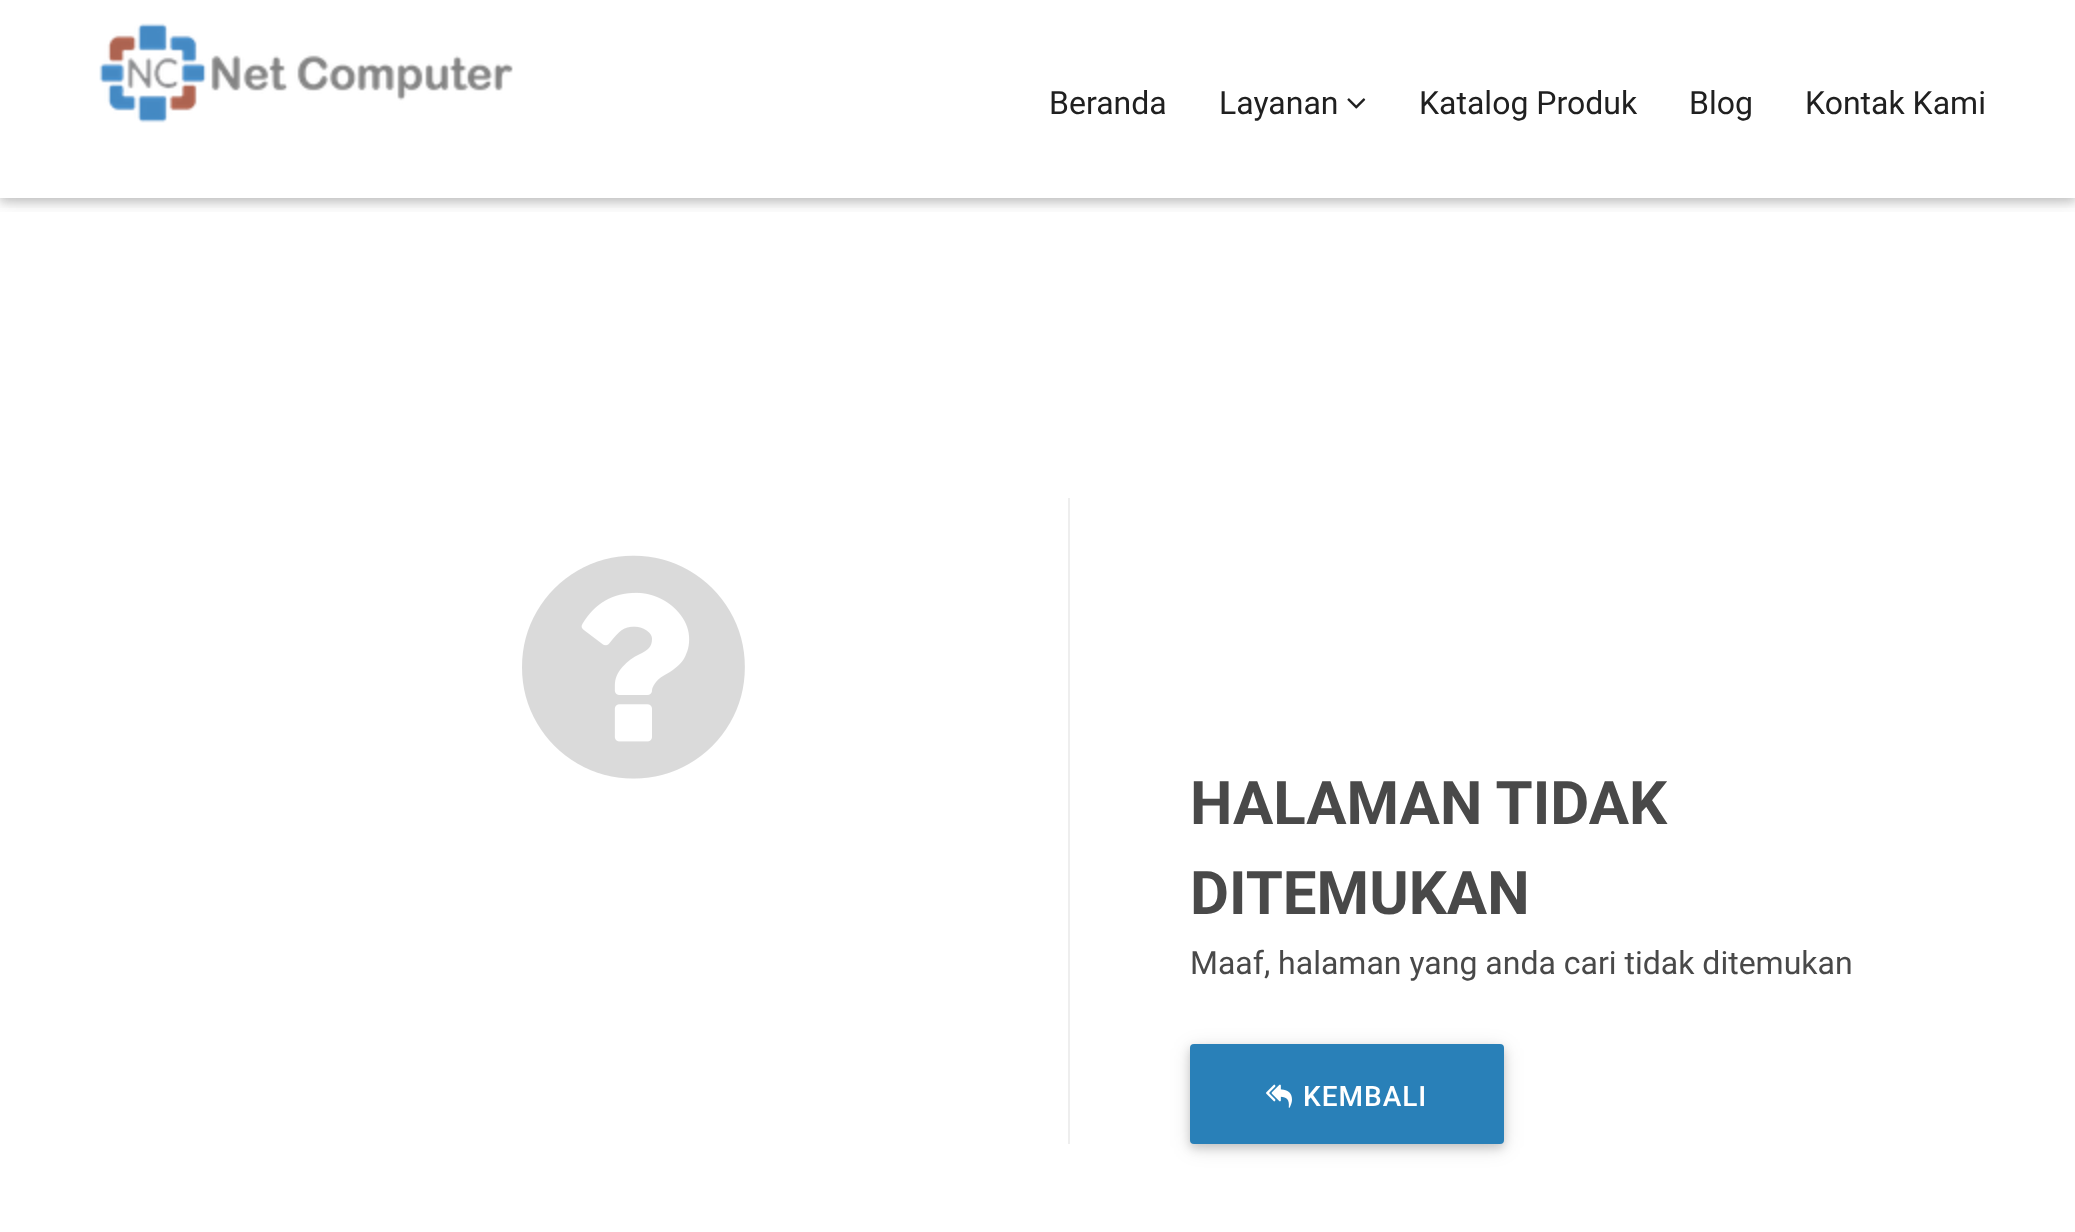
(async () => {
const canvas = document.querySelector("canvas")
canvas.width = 2075
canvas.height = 1232
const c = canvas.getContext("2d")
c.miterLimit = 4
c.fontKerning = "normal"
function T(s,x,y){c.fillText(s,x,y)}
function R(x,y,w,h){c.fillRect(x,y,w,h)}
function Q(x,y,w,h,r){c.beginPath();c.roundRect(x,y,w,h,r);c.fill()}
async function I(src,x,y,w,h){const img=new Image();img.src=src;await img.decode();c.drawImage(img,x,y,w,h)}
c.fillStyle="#fff"
R(0,0,2075,1232)
c.save()
c.beginPath()
c.rect(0,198,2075,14)
c.clip()
c.fillStyle="#0000001f"
c.filter="blur(10px)"
c.beginPath()
c.rect(0,4,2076,198)
c.fill()
c.filter="none"
c.restore()
c.save()
c.beginPath()
c.rect(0,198,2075,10)
c.clip()
c.fillStyle="#00000029"
c.filter="blur(5px)"
c.beginPath()
c.rect(0,4,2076,198)
c.fill()
c.filter="none"
c.restore()
await I("1.png",99,23,414,100)
c.font="32px Roboto"
c.fillStyle="#202020"
T("Beranda",1049,114)
T("Layanan",1219,114)
await I("2.png",1347,98,19,11)
T("Katalog Produk",1419,114)
T("Blog",1689,114)
T("Kontak Kami",1805,114)
await I("3.png",522,555,223,224)
c.fillStyle="#eee"
R(1068,498,2,646)
c.font="bold 60px Roboto"
c.fillStyle="#494949"
T("HALAMAN TIDAK",1190,824)
T("DITEMUKAN",1190,914)
c.font="32px Roboto"
T("Maaf, halaman yang anda cari tidak ditemukan",1190,974)
c.fillStyle="#0000001f"
c.filter="blur(10px)"
c.beginPath()
c.roundRect(1190,1048,314,100,4)
c.fill()
c.filter="none"
c.fillStyle="#00000029"
c.filter="blur(5px)"
c.beginPath()
c.roundRect(1190,1048,314,100,4)
c.fill()
c.filter="none"
c.fillStyle="#2980b8"
Q(1190,1044,314,100,4)
await I("4.png",1266,1084,26,24)
c.letterSpacing="1px"
c.font="500 28px Roboto"
c.fillStyle="#fff"
T("KEMBALI",1303,1106)
})()
